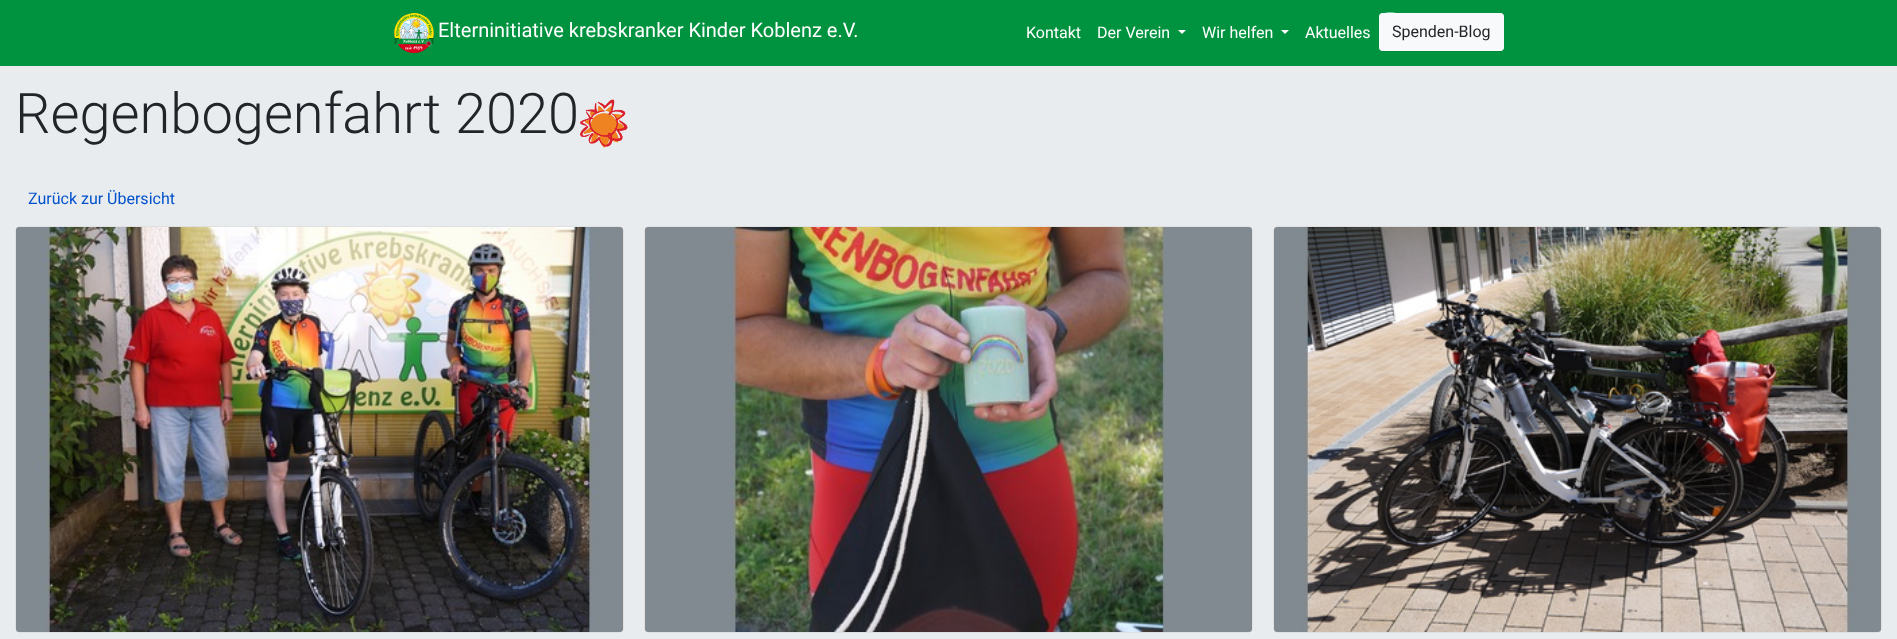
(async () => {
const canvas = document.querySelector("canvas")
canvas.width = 1897
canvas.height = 639
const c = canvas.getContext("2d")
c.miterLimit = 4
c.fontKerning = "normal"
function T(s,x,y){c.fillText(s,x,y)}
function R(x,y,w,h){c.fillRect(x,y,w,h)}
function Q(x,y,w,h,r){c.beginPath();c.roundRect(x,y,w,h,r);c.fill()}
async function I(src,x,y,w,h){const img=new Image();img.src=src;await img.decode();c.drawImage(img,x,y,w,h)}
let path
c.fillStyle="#e9ecef"
R(0,0,1897,639)
c.fillStyle="#00933f"
R(0,0,1897,66)
await I("1.png",394,13,40,40)
c.font="20px Roboto"
c.fillStyle="#fff"
T("Elterninitiative krebskranker Kinder Koblenz e.V.",438,37)
c.font="16px Roboto"
T("Kontakt",1026,38)
T("Der Verein",1097,38)
path = new Path2D("M1178 30h8l-4 4z")
c.fill(path)
T("Wir helfen",1202,38)
path = new Path2D("M1281 30h8l-4 4z")
c.fill(path)
T("Aktuelles",1305,38)
c.fillStyle="#00000012"
c.filter="blur(0.5px)"
c.beginPath()
c.roundRect(1379,14,125,38,4)
c.fill()
c.filter="none"
c.fillStyle="#f8f9fa"
Q(1379,13,125,38,4)
c.fillStyle="#f9fafb"
path = new Path2D("M1383 15h117c2 0 3 1 3 3c0-2-1-4-3-4h-98c0 0-22-5-22 4c0-2 1-3 3-3z")
c.fill(path)
c.beginPath()
c.roundRect(1379.5,13.5,124,37,3.5)
c.strokeStyle="#f8f9fa"
c.stroke()
c.fillStyle="#212529"
T("Spenden-Blog",1392,37)
c.font="300 56px Roboto"
T("Regenbogenfahrt 2020",15,133)
await I("2.png",580,99,48,49)
c.font="16px Roboto"
c.fillStyle="#0052cc"
T("Zurück zur Übersicht",28,204)
c.fillStyle="#fff"
Q(15,226,609,407,4)
c.beginPath()
c.roundRect(15.5,226.5,608,406,3.5)
c.strokeStyle="#0000001f"
c.stroke()
await I("3.png",16,227,607,405)
Q(644,226,609,407,4)
c.beginPath()
c.roundRect(644.5,226.5,608,406,3.5)
c.stroke()
await I("4.png",645,227,607,405)
Q(1273,226,609,407,4)
c.beginPath()
c.roundRect(1273.5,226.5,608,406,3.5)
c.stroke()
await I("5.png",1274,227,607,405)
})()
